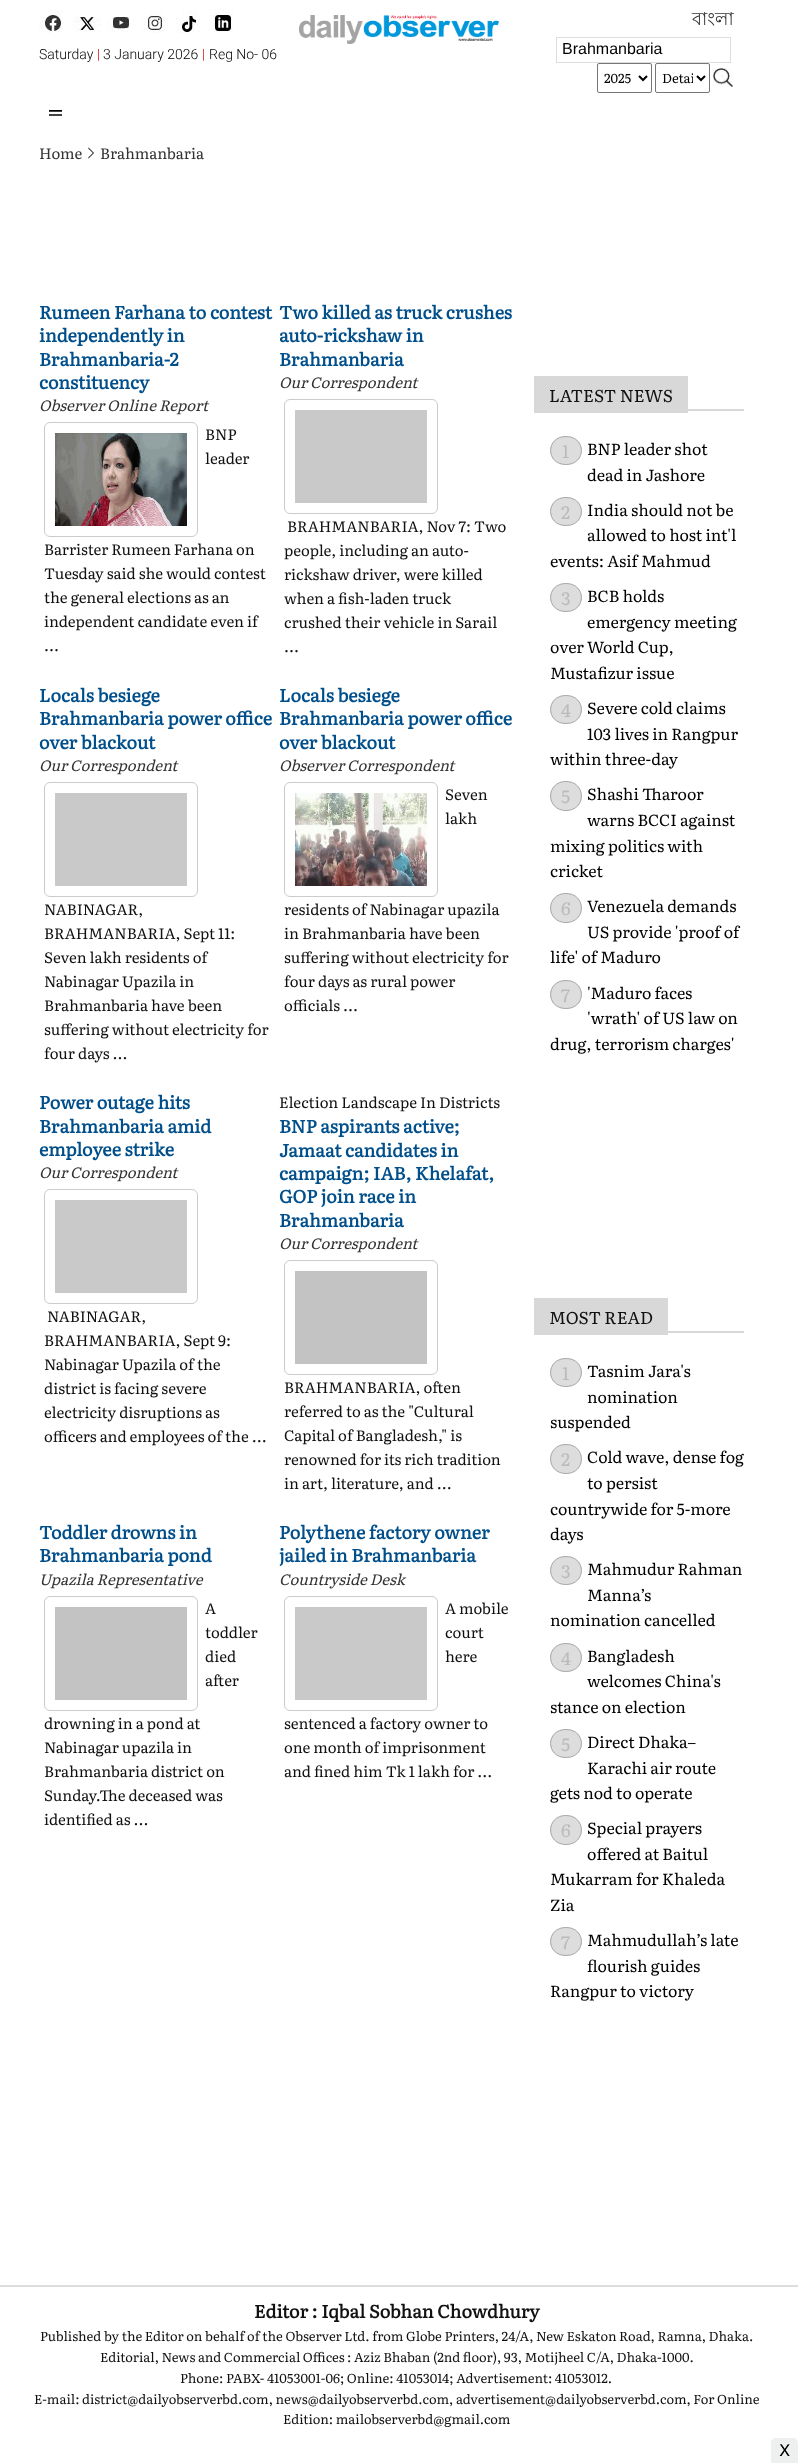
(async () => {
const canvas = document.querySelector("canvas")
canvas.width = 798
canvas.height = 2463
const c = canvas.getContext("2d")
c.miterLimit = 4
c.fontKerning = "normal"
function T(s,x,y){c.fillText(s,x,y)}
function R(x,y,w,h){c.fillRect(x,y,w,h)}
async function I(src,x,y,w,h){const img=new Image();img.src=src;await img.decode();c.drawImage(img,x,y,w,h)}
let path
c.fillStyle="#fff"
R(0,0,798,2463)
await I("1.png",299,15,200,29)
c.font="18px Lohit Bengali"
c.fillStyle="#333"
T("বাংলা",692,25)
c.strokeStyle="#ddd"
c.strokeRect(556.5,37.5,174,25)
c.font="16px Liberation Sans"
c.fillStyle="#000"
T("Brahmanbaria",562,54)
c.beginPath()
c.roundRect(597.5,63.5,54,29,1.5)
c.strokeStyle="#767676"
c.stroke()
path = new Path2D("M639 76l4 4l4-4")
c.strokeStyle="#000"
c.lineWidth=2
c.stroke(path)
c.font="13px Literata"
T("2025",604,83)
c.beginPath()
c.roundRect(655.5,63.5,54,29,1.5)
c.strokeStyle="#767676"
c.lineWidth=1
c.stroke()
path = new Path2D("M697 76l4 4l4-4")
c.strokeStyle="#000"
c.lineWidth=2
c.stroke(path)
c.save()
c.beginPath()
c.rect(662,67,31,21)
c.clip()
T("Detai",662,83)
c.restore()
await I("2.png",713,68,21,19)
await I("3.png",39,10,24,23)
await I("4.png",73,17,28,16)
await I("5.png",107,17,23,16)
await I("6.png",141,9,24,24)
await I("7.png",176,9,23,24)
await I("8.png",209,9,24,24)
c.font="300 14px Roboto"
T("Saturday",39,59)
c.fillStyle="#c00"
T("|",97,59)
c.fillStyle="#000"
T("3 January 2026",103,59)
c.fillStyle="#c00"
T("|",202,59)
c.fillStyle="#000"
T("Reg No- 06",209,59)
await I("9.png",49,110,13,6)
c.font="15px Literata"
c.fillStyle="#333"
T("Home",39,159)
await I("10.png",88,147,6,12)
T("Brahmanbaria",100,159)
c.font="bold 18px Literata"
c.fillStyle="#004f8b"
T("Rumeen Farhana to contest",39,319)
T("independently in",39,342)
T("Brahmanbaria-2",39,366)
T("constituency",39,389)
c.font="italic 15px Literata"
c.fillStyle="#333"
T("Observer Online Report",39,411)
c.beginPath()
c.roundRect(44.5,422.5,153,114,5.5)
c.strokeStyle="#ccc"
c.lineWidth=1
c.stroke()
await I("11.png",55,433,132,93)
c.font="15px Literata"
c.fillStyle="#111"
T("BNP",205,440)
T("leader",205,464)
T("Barrister Rumeen Farhana on",44,555)
T("Tuesday said she would contest",44,579)
T("the general elections as an",44,603)
T("independent candidate even if",44,627)
T("...",44,651)
c.font="bold 18px Literata"
c.fillStyle="#004f8b"
T("Two killed as truck crushes",279,319)
T("auto-rickshaw in",279,342)
T("Brahmanbaria",279,366)
c.font="italic 15px Literata"
c.fillStyle="#333"
T("Our Correspondent",279,388)
c.beginPath()
c.roundRect(284.5,399.5,153,114,5.5)
c.stroke()
c.fillStyle="#c9c9c9"
R(295,410,132,93)
c.font="15px Literata"
c.fillStyle="#111"
T("BRAHMANBARIA, Nov 7: Two",287,532)
T("people, including an auto-",284,556)
T("rickshaw driver, were killed",284,580)
T("when a fish-laden truck",284,604)
T("crushed their vehicle in Sarail",284,628)
T("...",284,652)
c.font="bold 18px Literata"
c.fillStyle="#004f8b"
T("Locals besiege",39,702)
T("Brahmanbaria power office",39,725)
T("over blackout",39,749)
c.font="italic 15px Literata"
c.fillStyle="#333"
T("Our Correspondent",39,771)
c.beginPath()
c.roundRect(44.5,782.5,153,114,5.5)
c.stroke()
c.fillStyle="#c9c9c9"
R(55,793,132,93)
c.font="15px Literata"
c.fillStyle="#111"
T("NABINAGAR,",44,915)
T("BRAHMANBARIA, Sept 11:",44,939)
T("Seven lakh residents of",44,963)
T("Nabinagar Upazila in",44,987)
T("Brahmanbaria have been",44,1011)
T("suffering without electricity for",44,1035)
T("four days ...",44,1059)
c.font="bold 18px Literata"
c.fillStyle="#004f8b"
T("Locals besiege",279,702)
T("Brahmanbaria power office",279,725)
T("over blackout",279,749)
c.font="italic 15px Literata"
c.fillStyle="#333"
T("Observer Correspondent",279,771)
c.beginPath()
c.roundRect(284.5,782.5,153,114,5.5)
c.stroke()
await I("12.png",295,793,132,93)
c.font="15px Literata"
c.fillStyle="#111"
T("Seven",445,800)
T("lakh",445,824)
T("residents of Nabinagar upazila",284,915)
T("in Brahmanbaria have been",284,939)
T("suffering without electricity for",284,963)
T("four days as rural power",284,987)
T("officials ...",284,1011)
c.font="bold 18px Literata"
c.fillStyle="#004f8b"
T("Power outage hits",39,1109)
T("Brahmanbaria amid",39,1133)
T("employee strike",39,1156)
c.font="italic 15px Literata"
c.fillStyle="#333"
T("Our Correspondent",39,1178)
c.beginPath()
c.roundRect(44.5,1189.5,153,114,5.5)
c.stroke()
c.fillStyle="#c9c9c9"
R(55,1200,132,93)
c.font="15px Literata"
c.fillStyle="#111"
T("NABINAGAR,",47,1322)
T("BRAHMANBARIA, Sept 9:",44,1346)
T("Nabinagar Upazila of the",44,1370)
T("district is facing severe",44,1394)
T("electricity disruptions as",44,1418)
T("officers and employees of the ...",44,1442)
T("Election Landscape In Districts",279,1108)
c.font="bold 18px Literata"
c.fillStyle="#004f8b"
T("BNP aspirants active;",279,1133)
T("Jamaat candidates in",279,1157)
T("campaign; IAB, Khelafat,",279,1180)
T("GOP join race in",279,1203)
T("Brahmanbaria",279,1227)
c.font="italic 15px Literata"
c.fillStyle="#333"
T("Our Correspondent",279,1249)
c.beginPath()
c.roundRect(284.5,1260.5,153,114,5.5)
c.stroke()
c.fillStyle="#c3c3c3"
R(295,1271,132,93)
c.font="15px Literata"
c.fillStyle="#111"
T("BRAHMANBARIA, often",284,1393)
T("referred to as the \"Cultural",284,1417)
T("Capital of Bangladesh,\" is",284,1441)
T("renowned for its rich tradition",284,1465)
T("in art, literature, and ...",284,1489)
c.font="bold 18px Literata"
c.fillStyle="#004f8b"
T("Toddler drowns in",39,1539)
T("Brahmanbaria pond",39,1562)
c.font="italic 15px Literata"
c.fillStyle="#333"
T("Upazila Representative",39,1585)
c.beginPath()
c.roundRect(44.5,1596.5,153,114,5.5)
c.stroke()
c.fillStyle="#c3c3c3"
R(55,1607,132,93)
c.font="15px Literata"
c.fillStyle="#111"
T("A",205,1614)
T("toddler",205,1638)
T("died",205,1662)
T("after",205,1686)
T("drowning in a pond at",44,1729)
T("Nabinagar upazila in",44,1753)
T("Brahmanbaria district on",44,1777)
T("Sunday.The deceased was",44,1801)
T("identified as ...",44,1825)
c.font="bold 18px Literata"
c.fillStyle="#004f8b"
T("Polythene factory owner",279,1539)
T("jailed in Brahmanbaria",279,1562)
c.font="italic 15px Literata"
c.fillStyle="#333"
T("Countryside Desk",279,1585)
c.beginPath()
c.roundRect(284.5,1596.5,153,114,5.5)
c.stroke()
c.fillStyle="#c9c9c9"
R(295,1607,132,93)
c.font="15px Literata"
c.fillStyle="#111"
T("A mobile",445,1614)
T("court",445,1638)
T("here",445,1662)
T("sentenced a factory owner to",284,1729)
T("one month of imprisonment",284,1753)
T("and fined him Tk 1 lakh for ...",284,1777)
c.fillStyle="#d8d8d8"
R(688,409,56,2)
R(534,376,154,37)
c.font="17px Literata"
c.fillStyle="#111"
T("LATEST NEWS",549,402)
c.fillStyle="#ddd"
c.beginPath()
c.ellipse(566,450.5,16,14.5,0,0,7)
c.fill()
path = new Path2D("M566 436.5c20.5 0 20.5 28 0 28c-20.5 0-20.5-28 0-28z")
c.strokeStyle="#aaa"
c.stroke(path)
c.font="18px Literata"
c.fillStyle="#bbb"
T("1",562,458)
c.font="16px Literata"
c.fillStyle="#000"
T("BNP leader shot",587,455)
T("dead in Jashore",587,481)
c.fillStyle="#ddd"
c.beginPath()
c.ellipse(566,511.5,16,14.5,0,0,7)
c.fill()
path = new Path2D("M566 497.5c20.5 0 20.5 28 0 28c-20.5 0-20.5-28 0-28z")
c.stroke(path)
c.font="18px Literata"
c.fillStyle="#bbb"
T("2",561,519)
c.font="16px Literata"
c.fillStyle="#000"
T("India should not be",587,516)
T("allowed to host int'l",587,541)
T("events: Asif Mahmud",550,567)
c.fillStyle="#ddd"
c.beginPath()
c.ellipse(566,597.5,16,14.5,0,0,7)
c.fill()
path = new Path2D("M566 583.5c20.5 0 20.5 28 0 28c-20.5 0-20.5-28 0-28z")
c.stroke(path)
c.font="18px Literata"
c.fillStyle="#bbb"
T("3",561,605)
c.font="16px Literata"
c.fillStyle="#000"
T("BCB holds",587,602)
T("emergency meeting",587,628)
T("over World Cup,",550,653)
T("Mustafizur issue",550,679)
c.fillStyle="#ddd"
c.beginPath()
c.ellipse(566,709.5,16,14.5,0,0,7)
c.fill()
path = new Path2D("M566 695.5c20.5 0 20.5 28 0 28c-20.5 0-20.5-28 0-28z")
c.stroke(path)
c.font="18px Literata"
c.fillStyle="#bbb"
T("4",561,717)
c.font="16px Literata"
c.fillStyle="#000"
T("Severe cold claims",587,714)
T("103 lives in Rangpur",587,740)
T("within three-day",550,765)
c.fillStyle="#ddd"
c.beginPath()
c.ellipse(566,796,16,15,0,0,7)
c.fill()
path = new Path2D("M566 781.5c20.5 0 20.5 29 0 29c-20.5 0-20.5-29 0-29z")
c.stroke(path)
c.font="18px Literata"
c.fillStyle="#bbb"
T("5",561,803)
c.font="16px Literata"
c.fillStyle="#000"
T("Shashi Tharoor",587,800)
T("warns BCCI against",587,826)
T("mixing politics with",550,852)
T("cricket",550,877)
c.fillStyle="#ddd"
c.beginPath()
c.ellipse(566,908,16,15,0,0,7)
c.fill()
path = new Path2D("M566 893.5c20.5 0 20.5 29 0 29c-20.5 0-20.5-29 0-29z")
c.stroke(path)
c.font="18px Literata"
c.fillStyle="#bbb"
T("6",561,915)
c.font="16px Literata"
c.fillStyle="#000"
T("Venezuela demands",587,912)
T("US provide 'proof of",587,938)
T("life' of Maduro",550,963)
c.fillStyle="#ddd"
c.beginPath()
c.ellipse(566,994.5,16,14.5,0,0,7)
c.fill()
path = new Path2D("M566 980.5c20.5 0 20.5 28 0 28c-20.5 0-20.5-28 0-28z")
c.stroke(path)
c.font="18px Literata"
c.fillStyle="#bbb"
T("7",561,1002)
c.font="16px Literata"
c.fillStyle="#000"
T("'Maduro faces",587,999)
T("'wrath' of US law on",587,1024)
T("drug, terrorism charges'",550,1050)
c.fillStyle="#d8d8d8"
R(668,1331,76,2)
R(534,1298,134,37)
c.font="17px Literata"
c.fillStyle="#111"
T("MOST READ",549,1324)
c.fillStyle="#ddd"
c.beginPath()
c.ellipse(566,1372.5,16,14.5,0,0,7)
c.fill()
path = new Path2D("M566 1358.5c20.5 0 20.5 28 0 28c-20.5 0-20.5-28 0-28z")
c.stroke(path)
c.font="18px Literata"
c.fillStyle="#bbb"
T("1",562,1380)
c.font="16px Literata"
c.fillStyle="#000"
T("Tasnim Jara's",587,1377)
T("nomination",587,1403)
T("suspended",550,1428)
c.fillStyle="#ddd"
c.beginPath()
c.ellipse(566,1459,16,15,0,0,7)
c.fill()
path = new Path2D("M566 1444.5c20.5 0 20.5 29 0 29c-20.5 0-20.5-29 0-29z")
c.stroke(path)
c.font="18px Literata"
c.fillStyle="#bbb"
T("2",561,1466)
c.font="16px Literata"
c.fillStyle="#000"
T("Cold wave, dense fog",587,1463)
T("to persist",587,1489)
T("countrywide for 5-more",550,1515)
T("days",550,1540)
c.fillStyle="#ddd"
c.beginPath()
c.ellipse(566,1570.5,16,14.5,0,0,7)
c.fill()
path = new Path2D("M566 1556.5c20.5 0 20.5 28 0 28c-20.5 0-20.5-28 0-28z")
c.stroke(path)
c.font="18px Literata"
c.fillStyle="#bbb"
T("3",561,1578)
c.font="16px Literata"
c.fillStyle="#000"
T("Mahmudur Rahman",587,1575)
T("Manna’s",587,1601)
T("nomination cancelled",550,1626)
c.fillStyle="#ddd"
c.beginPath()
c.ellipse(566,1657.5,16,14.5,0,0,7)
c.fill()
path = new Path2D("M566 1643.5c20.5 0 20.5 28 0 28c-20.5 0-20.5-28 0-28z")
c.stroke(path)
c.font="18px Literata"
c.fillStyle="#bbb"
T("4",561,1665)
c.font="16px Literata"
c.fillStyle="#000"
T("Bangladesh",587,1662)
T("welcomes China's",587,1687)
T("stance on election",550,1713)
c.fillStyle="#ddd"
c.beginPath()
c.ellipse(566,1743.5,16,14.5,0,0,7)
c.fill()
path = new Path2D("M566 1729.5c20.5 0 20.5 28 0 28c-20.5 0-20.5-28 0-28z")
c.stroke(path)
c.font="18px Literata"
c.fillStyle="#bbb"
T("5",561,1751)
c.font="16px Literata"
c.fillStyle="#000"
T("Direct Dhaka–",587,1748)
T("Karachi air route",587,1774)
T("gets nod to operate",550,1799)
c.fillStyle="#ddd"
c.beginPath()
c.ellipse(566,1830,16,15,0,0,7)
c.fill()
path = new Path2D("M566 1815.5c20.5 0 20.5 29 0 29c-20.5 0-20.5-29 0-29z")
c.stroke(path)
c.font="18px Literata"
c.fillStyle="#bbb"
T("6",561,1837)
c.font="16px Literata"
c.fillStyle="#000"
T("Special prayers",587,1834)
T("offered at Baitul",587,1860)
T("Mukarram for Khaleda",550,1885)
T("Zia",550,1911)
c.fillStyle="#ddd"
c.beginPath()
c.ellipse(566,1941.5,16,14.5,0,0,7)
c.fill()
path = new Path2D("M566 1927.5c20.5 0 20.5 28 0 28c-20.5 0-20.5-28 0-28z")
c.stroke(path)
c.font="18px Literata"
c.fillStyle="#bbb"
T("7",561,1949)
c.font="16px Literata"
c.fillStyle="#000"
T("Mahmudullah’s late",587,1946)
T("flourish guides",587,1972)
T("Rangpur to victory",550,1997)
c.fillStyle="#ddd"
R(0,2285,798,2)
c.font="bold 18px Literata"
c.fillStyle="#111"
T("Editor : Iqbal Sobhan Chowdhury",254,2318)
c.font="13px Literata"
T("Published by the Editor on behalf of the Observer Ltd. from Globe Printers, 24/A, New Eskaton Road, Ramna, Dhaka.",40,2341)
T("Editorial, News and Commercial Offices : Aziz Bhaban (2nd floor), 93, Motijheel C/A, Dhaka-1000.",100,2362)
T("Phone: PABX- 41053001-06; Online: 41053014; Advertisement: 41053012.",180,2383)
T("E-mail: district@dailyobserverbd.com, news@dailyobserverbd.com, advertisement@dailyobserverbd.com, For Online",34,2404)
T("Edition: mailobserverbd@gmail.com",283,2424)
await I("13.png",771,2438,27,25)
})()
